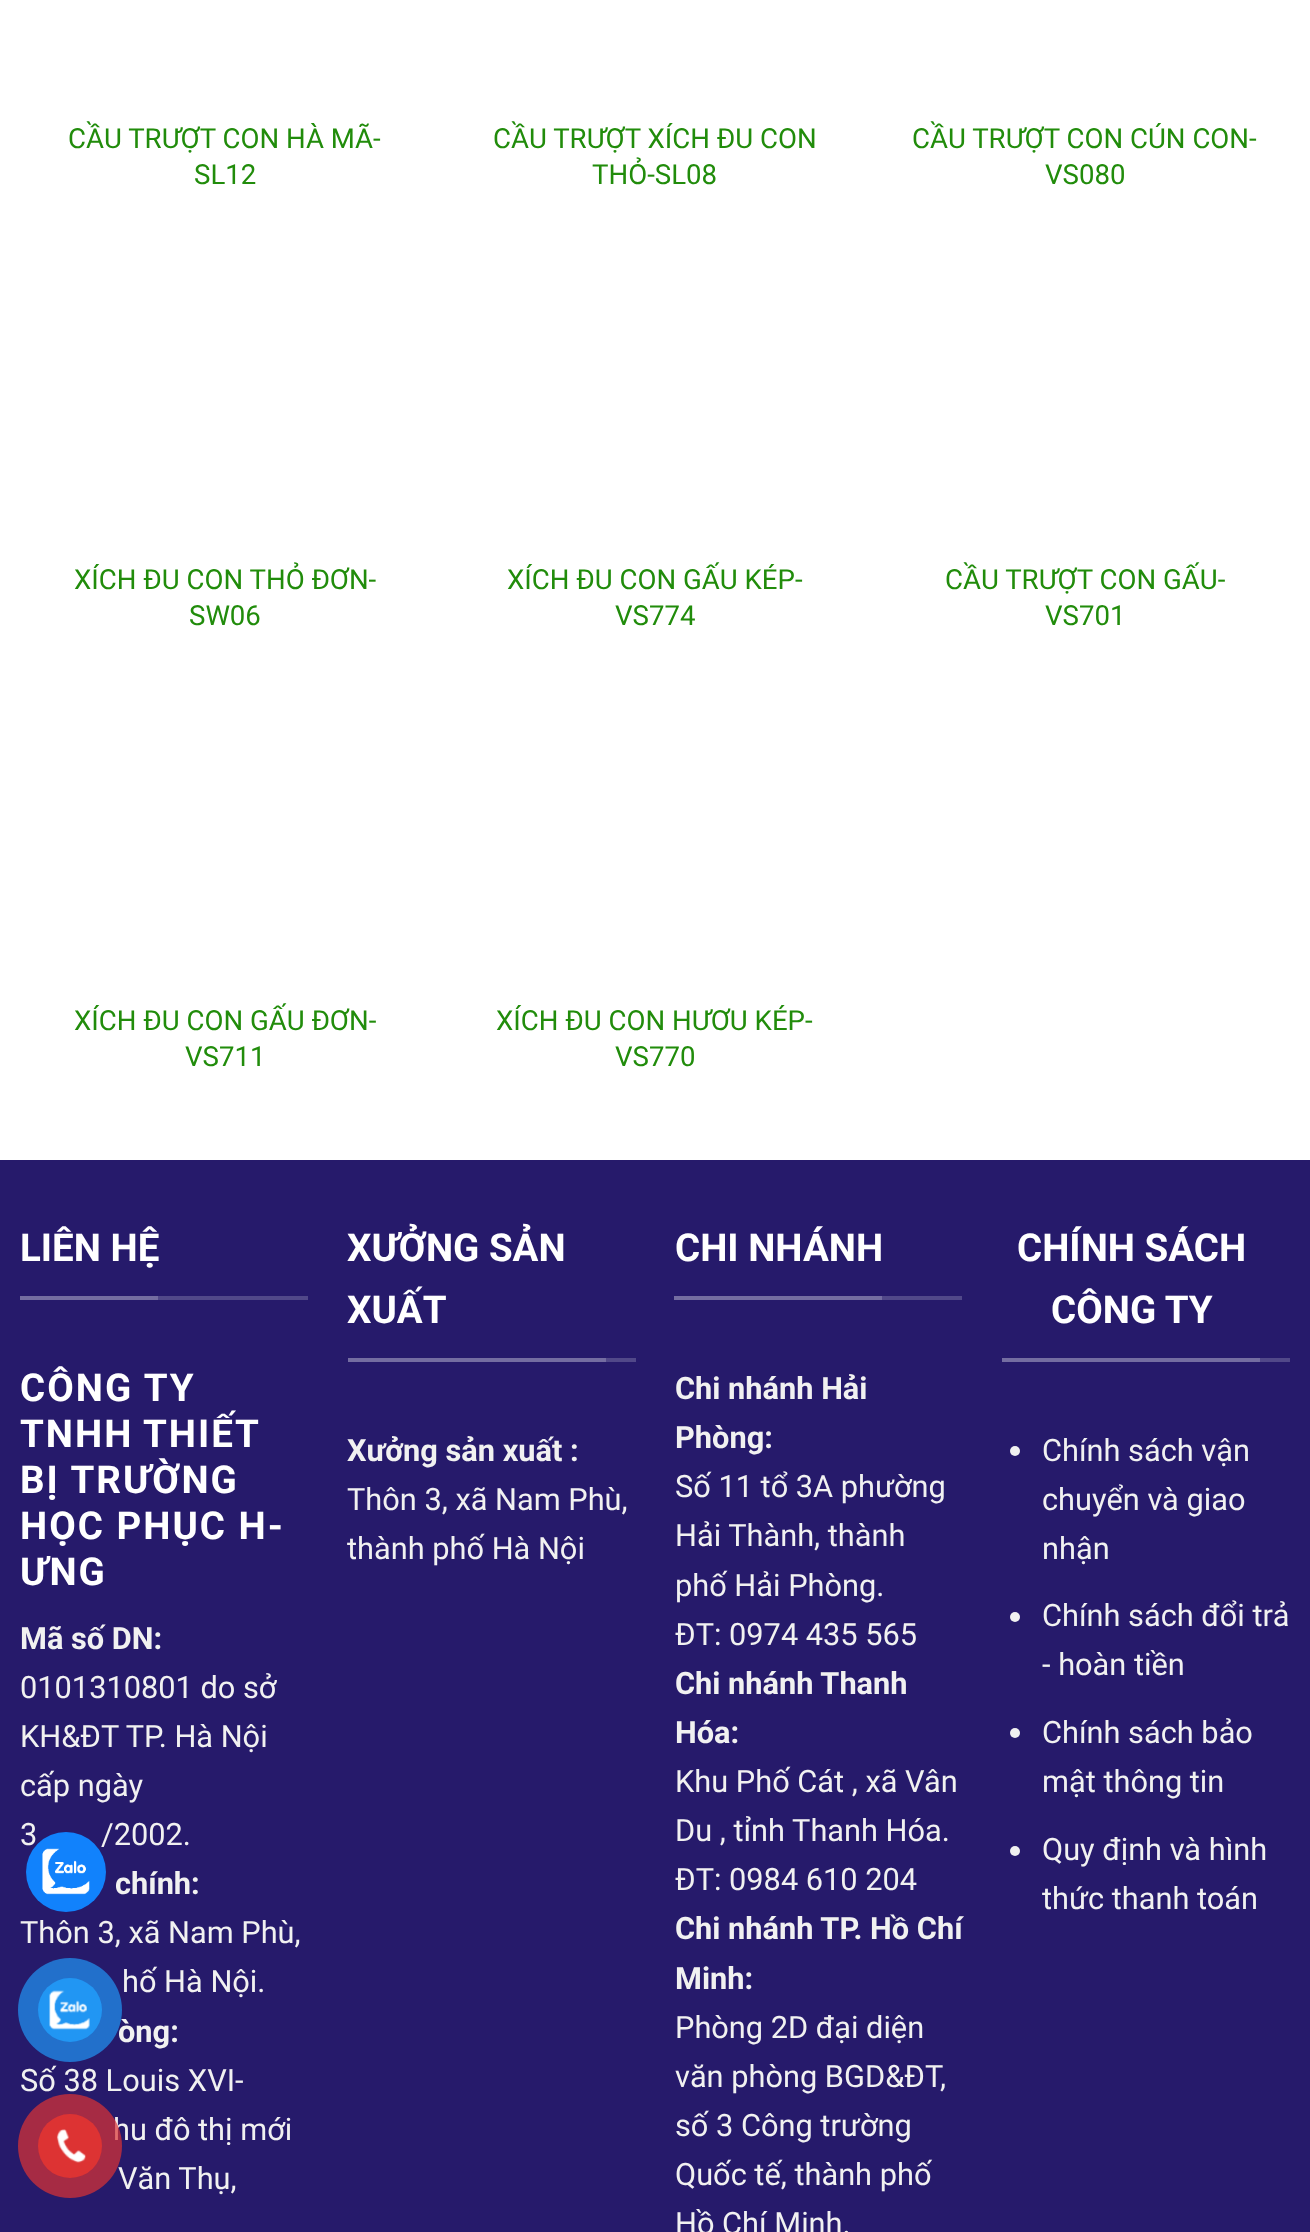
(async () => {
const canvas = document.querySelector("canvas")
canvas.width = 1310
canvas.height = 2232
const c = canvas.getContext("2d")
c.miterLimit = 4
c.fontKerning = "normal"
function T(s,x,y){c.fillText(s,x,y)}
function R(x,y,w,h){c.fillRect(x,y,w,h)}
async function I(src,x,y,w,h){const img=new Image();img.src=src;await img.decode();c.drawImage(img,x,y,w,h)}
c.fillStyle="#fff"
R(0,0,1310,2232)
c.font="27.6px Roboto"
c.fillStyle="#218c0b"
T("CẦU TRƯỢT CON HÀ MÃ-",68,148)
T("SL12",194,184)
T("CẦU TRƯỢT XÍCH ĐU CON",493,148)
T("THỎ-SL08",592,184)
T("CẦU TRƯỢT CON CÚN CON-",912,148)
T("VS080",1045,184)
T("XÍCH ĐU CON THỎ ĐƠN-",74,589)
T("SW06",189,625)
T("XÍCH ĐU CON GẤU KÉP-",507,589)
T("VS774",615,625)
T("CẦU TRƯỢT CON GẤU-",945,589)
T("VS701",1045,625)
T("XÍCH ĐU CON GẤU ĐƠN-",74,1030)
T("VS711",185,1066)
T("XÍCH ĐU CON HƯƠU KÉP-",496,1030)
T("VS770",615,1066)
c.fillStyle="#261a6b"
R(0,1160,1310,1072)
c.fillStyle="#514889"
R(158,1296,150,4)
c.fillStyle="#746da1"
R(20,1296,138,4)
c.font="bold 38.5px Roboto"
c.fillStyle="#fff"
T("LIÊN HỆ",20,1261)
c.letterSpacing="2px"
T("CÔNG TY",20,1401)
c.wordSpacing="-1px"
T("TNHH THIẾT",20,1447)
c.wordSpacing="0px"
T("BỊ TRƯỜNG",20,1493)
T("HỌC PHỤC H-",20,1539)
T("ƯNG",20,1585)
c.letterSpacing="0px"
c.font="bold 30.75px Roboto"
c.fillStyle="#f1f1f1"
T("Mã số DN:",20,1649)
c.font="30.75px Roboto"
T("0101310801 do sở",20,1698)
T("KH&ĐT TP. Hà Nội",20,1747)
T("cấp ngày",20,1796)
T("3",20,1845)
T("/2002.",101,1845)
c.font="bold 30.75px Roboto"
T("chính:",115,1894)
c.font="30.75px Roboto"
T("Thôn 3, xã Nam Phù,",20,1943)
T("hố Hà Nội.",122,1992)
c.font="bold 30.75px Roboto"
T("òng:",118,2042)
c.font="30.75px Roboto"
T("Số 38 Louis XVI-",20,2091)
T("hu đô thị mới",113,2140)
T("Văn Thụ,",118,2189)
c.fillStyle="#514889"
R(606,1358,30,4)
c.fillStyle="#746da1"
R(348,1358,258,4)
c.font="bold 38.5px Roboto"
c.fillStyle="#fff"
T("XƯỞNG SẢN",347,1261)
T("XUẤT",347,1323)
c.font="bold 30.75px Roboto"
c.fillStyle="#f1f1f1"
T("Xưởng sản xuất :",347,1461)
c.font="30.75px Roboto"
T("Thôn 3, xã Nam Phù,",347,1510)
T("thành phố Hà Nội",347,1559)
c.fillStyle="#514889"
R(882,1296,80,4)
c.fillStyle="#746da1"
R(674,1296,208,4)
c.font="bold 38.5px Roboto"
c.fillStyle="#fff"
T("CHI NHÁNH",675,1261)
c.font="bold 30.75px Roboto"
c.fillStyle="#f1f1f1"
T("Chi nhánh Hải",675,1399)
T("Phòng:",675,1448)
c.font="30.75px Roboto"
T("Số 11 tổ 3A phường",675,1497)
T("Hải Thành, thành",675,1546)
T("phố Hải Phòng.",675,1596)
T("ĐT: 0974 435 565",675,1645)
c.font="bold 30.75px Roboto"
T("Chi nhánh Thanh",675,1694)
T("Hóa:",675,1743)
c.font="30.75px Roboto"
T("Khu Phố Cát , xã Vân",675,1792)
T("Du , tỉnh Thanh Hóa.",675,1841)
T("ĐT: 0984 610 204",675,1890)
c.font="bold 30.75px Roboto"
T("Chi nhánh TP. Hồ Chí",675,1939)
T("Minh:",675,1989)
c.font="30.75px Roboto"
T("Phòng 2D đại diện",675,2038)
T("văn phòng BGD&ĐT,",675,2087)
T("số 3 Công trường",675,2136)
T("Quốc tế, thành phố",675,2185)
T("Hồ Chí Minh.",675,2234)
c.fillStyle="#514889"
R(1260,1358,30,4)
c.fillStyle="#746da1"
R(1002,1358,258,4)
c.font="bold 38.5px Roboto"
c.fillStyle="#fff"
T("CHÍNH SÁCH",1017,1261)
T("CÔNG TY",1051,1323)
c.fillStyle="#f1f1f1"
c.beginPath()
c.arc(1015,1451,5,0,7)
c.fill()
c.font="30.75px Roboto"
T("Chính sách vận",1042,1461)
T("chuyển và giao",1042,1510)
T("nhận",1042,1559)
c.beginPath()
c.arc(1015,1617,5,0,7)
c.fill()
T("Chính sách đổi trả",1042,1626)
T("- hoàn tiền",1042,1675)
c.beginPath()
c.arc(1015,1733,5,0,7)
c.fill()
T("Chính sách bảo",1042,1743)
T("mật thông tin",1042,1792)
c.beginPath()
c.arc(1015,1851,5,0,7)
c.fill()
T("Quy định và hình",1042,1860)
T("thức thanh toán",1042,1909)
c.fillStyle="#1182fc"
c.beginPath()
c.arc(66,1872,40,0,7)
c.fill()
await I("1.png",42,1848,48,47)
c.fillStyle="#2196f3b3"
c.beginPath()
c.arc(70,2010,52,0,7)
c.fill()
c.fillStyle="#2196f3"
c.beginPath()
c.arc(70,2010,32,0,7)
c.fill()
await I("2.png",49,1990,41,40)
c.fillStyle="#dd3333b3"
c.beginPath()
c.arc(70,2146,52,0,7)
c.fill()
c.fillStyle="#d33"
c.beginPath()
c.arc(70,2146,32,0,7)
c.fill()
await I("3.png",56,2129,30,34)
})()
